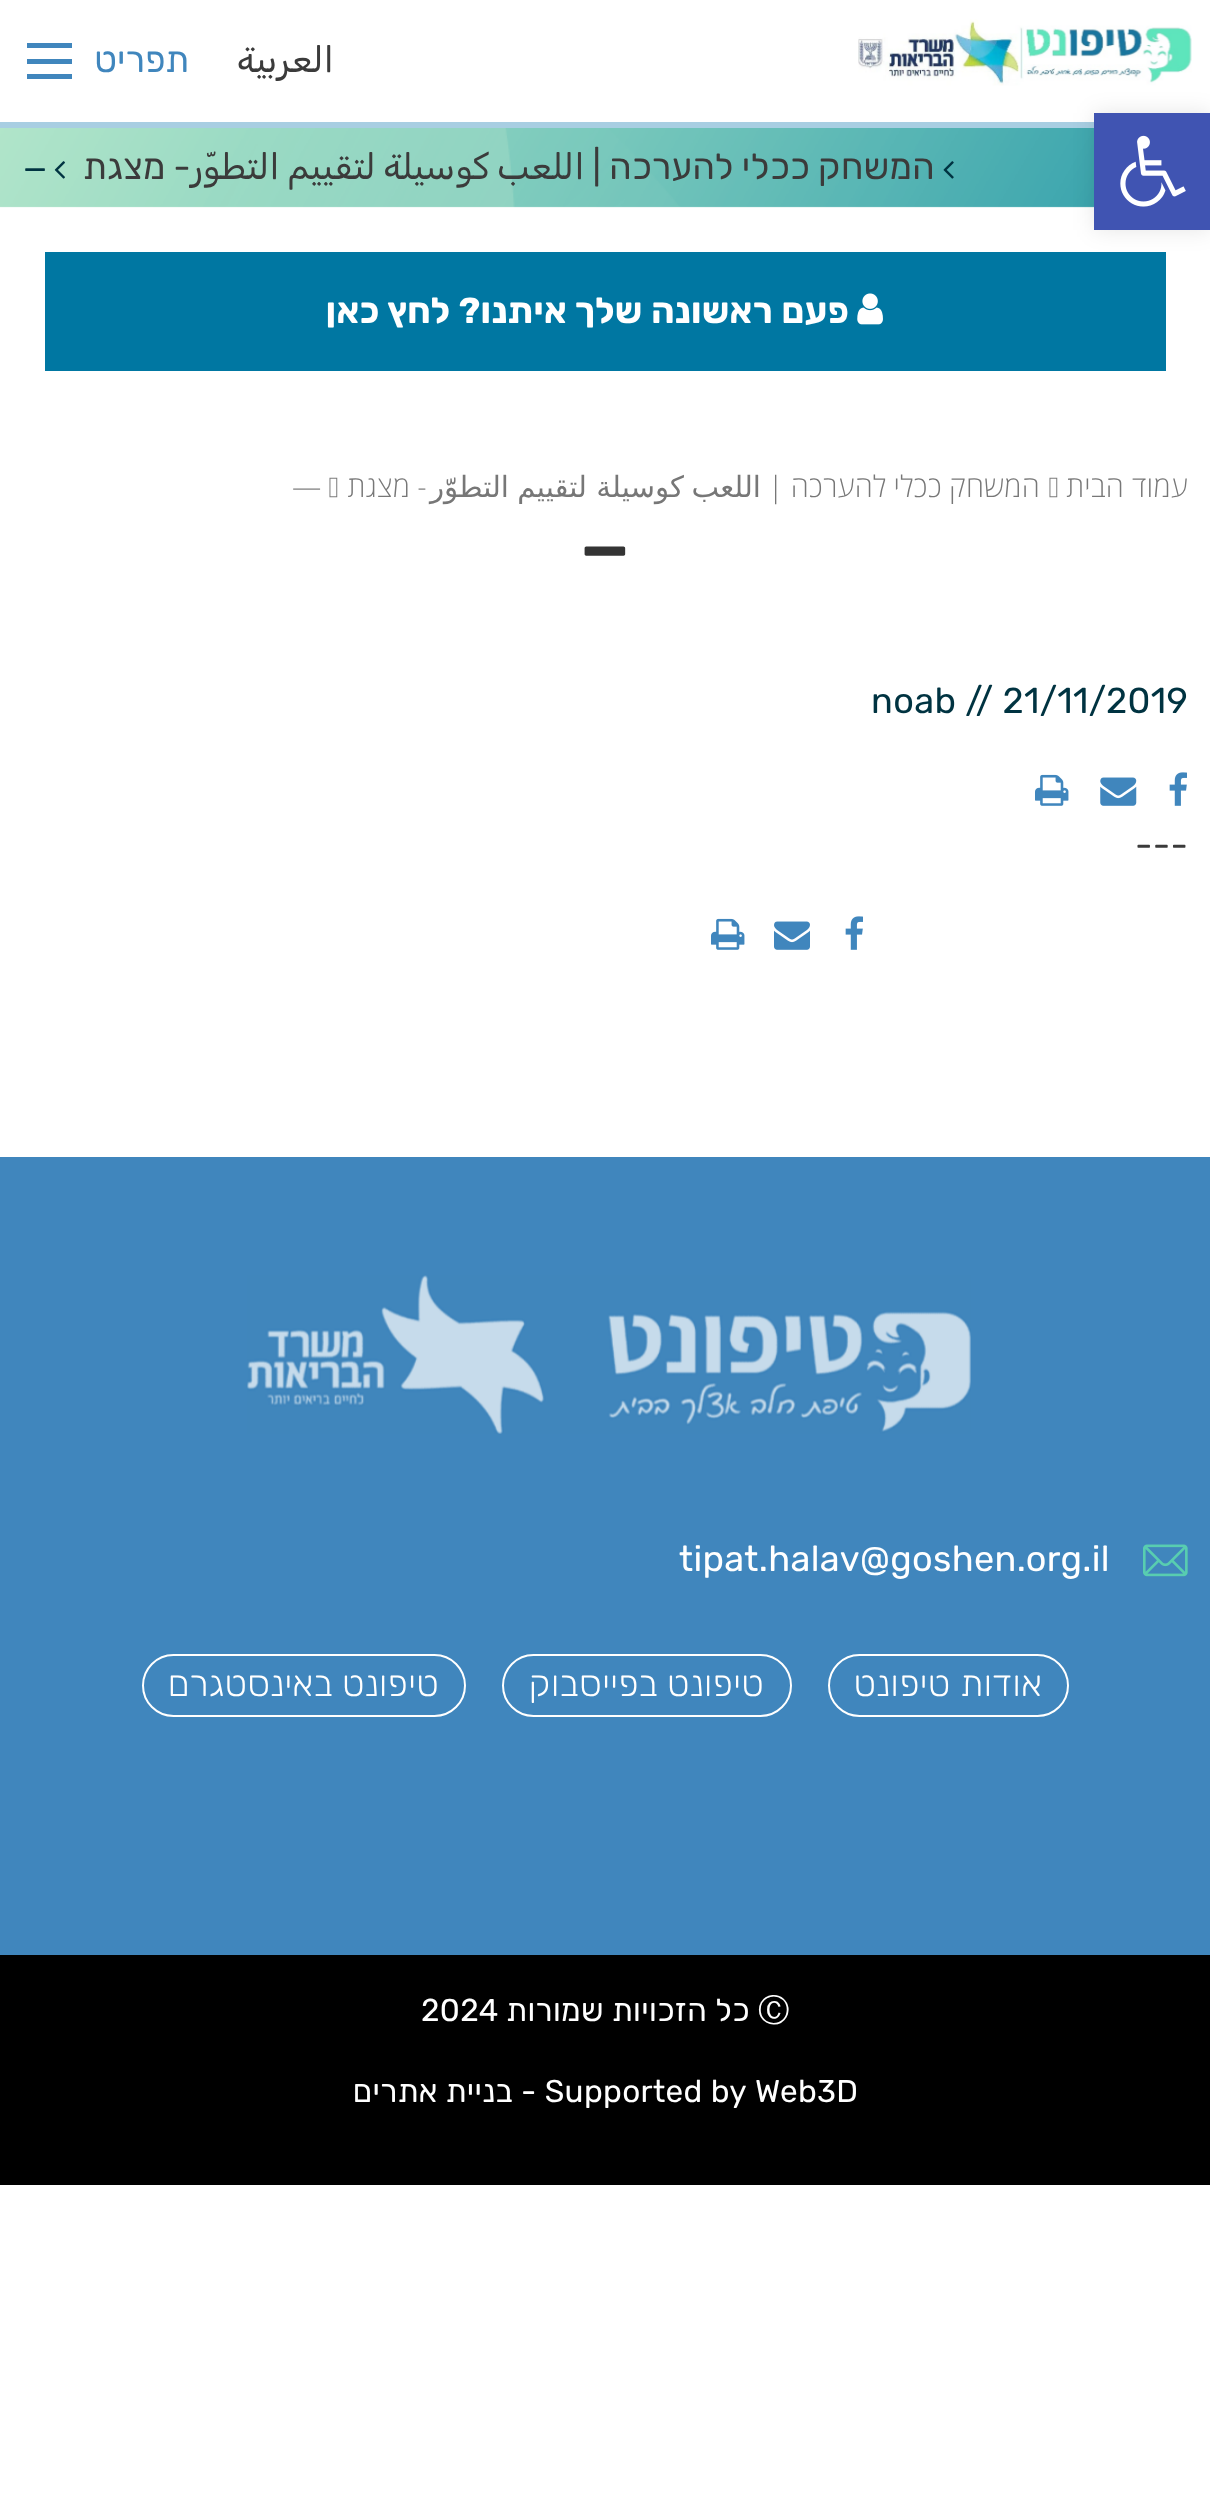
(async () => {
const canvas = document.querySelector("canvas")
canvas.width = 1210
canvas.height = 2501
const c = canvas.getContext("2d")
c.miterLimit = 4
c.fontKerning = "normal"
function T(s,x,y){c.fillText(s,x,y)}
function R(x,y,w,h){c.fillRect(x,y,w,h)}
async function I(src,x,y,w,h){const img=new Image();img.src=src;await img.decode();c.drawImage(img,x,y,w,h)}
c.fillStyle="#fff"
R(0,0,1210,2501)
c.fillStyle="#a8cee2"
R(0,122,1094,6)
await I("1.png",858,19,334,67)
c.letterSpacing="0.35px"
c.direction="rtl"
c.font="36px Rubik"
c.fillStyle="#3b3b3b"
T("العربية",334,72)
c.letterSpacing="0px"
c.fillStyle="#4086bd"
T("תפריט",189,72)
R(27,74,45,5)
R(27,59,45,5)
R(27,43,45,5)
await I("2.png",0,128,1094,80)
await I("3.png",943,161,11,18)
c.letterSpacing="0.35px"
c.wordSpacing="-1.25px"
c.fillStyle="#3b3b3b"
T("המשחק ככלי להערכה | اللعب كوسيلة لتقييم التطوّر- מצגת",935,179)
await I("4.png",54,161,11,18)
c.letterSpacing="0px"
c.wordSpacing="0px"
c.direction="ltr"
c.font="31.5px Rubik"
c.fillStyle="#003341"
T("—",23,179)
c.fillStyle="#0077a2"
R(45,252,1121,119)
await I("5.png",857,293,26,32)
c.letterSpacing="0.35px"
c.wordSpacing="0.5px"
c.direction="rtl"
c.font="bold 36px Rubik"
c.fillStyle="#fff"
T("פעם ראשונה שלך איתנו? לחץ כאן",849,323)
c.wordSpacing="0px"
c.font="300 29.25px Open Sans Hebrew"
c.fillStyle="#777"
T("עמוד הבית",1188,497)
await I("6.png",1049,477,9,21)
c.wordSpacing="-1px"
T("המשחק ככלי להערכה |",1040,497)
c.wordSpacing="0px"
c.font="29.25px DejaVu Sans"
T("اللعب",761,497)
T("كوسيلة",684,497)
T("لتقييم",587,497)
c.wordSpacing="-1px"
c.font="300 29.25px Open Sans Hebrew"
T("- מצגת",427,497)
c.wordSpacing="0px"
c.font="29.25px DejaVu Sans"
T("التطوّر",509,497)
await I("6.png",329,477,9,21)
c.direction="ltr"
c.font="300 29.25px Open Sans Hebrew"
T("—",292,497)
c.letterSpacing="0px"
c.font="bold 63px Rubik"
c.fillStyle="#343434"
T("—",581,570)
c.letterSpacing="0.35px"
c.font="36px Rubik"
c.fillStyle="#003341"
T("noab // 21/11/2019",871,713)
await I("7.png",1169,772,18,34)
await I("8.png",1100,777,37,29)
await I("9.png",1035,774,34,32)
c.fillStyle="#3b3b3b"
T("---",1135,857)
await I("7.png",845,916,18,34)
await I("10.png",774,921,36,29)
await I("9.png",711,918,34,32)
c.fillStyle="#4086bd"
R(0,1157,1210,798)
await I("11.png",247,1275,724,159)
await I("12.png",1143,1544,45,33)
c.fillStyle="#fff"
T("tipat.halav@goshen.org.il",679,1571)
c.beginPath()
c.roundRect(829,1655,239,61,30.5)
c.strokeStyle="#fff"
c.lineWidth=2
c.stroke()
c.direction="rtl"
c.font="300 36px Rubik"
T("אודות טיפונט",1042,1696)
c.beginPath()
c.roundRect(503,1655,288,61,30.5)
c.stroke()
T("טיפונט בפייסבוק",764,1696)
c.beginPath()
c.roundRect(143,1655,322,61,30.5)
c.stroke()
T("טיפונט באינסטגרם",439,1696)
c.fillStyle="#000"
R(0,1955,1210,230)
c.direction="ltr"
c.font="500 31.5px WenQuanYi Zen Hei"
c.fillStyle="#fff"
T("Ⓒ",758,2021)
c.direction="rtl"
c.font="31.5px Rubik"
T("כל הזכויות שמורות",750,2021)
c.direction="ltr"
T("2024",421,2021)
T("- Supported by Web3D",521,2102)
c.direction="rtl"
T("בניית אתרים",513,2102)
c.fillStyle="#0000001a"
c.filter="blur(11px)"
c.beginPath()
c.rect(1094,113,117,117)
c.fill()
c.filter="none"
c.fillStyle="#4054b2"
R(1094,113,116,117)
await I("13.png",1120,135,66,72)
})()
